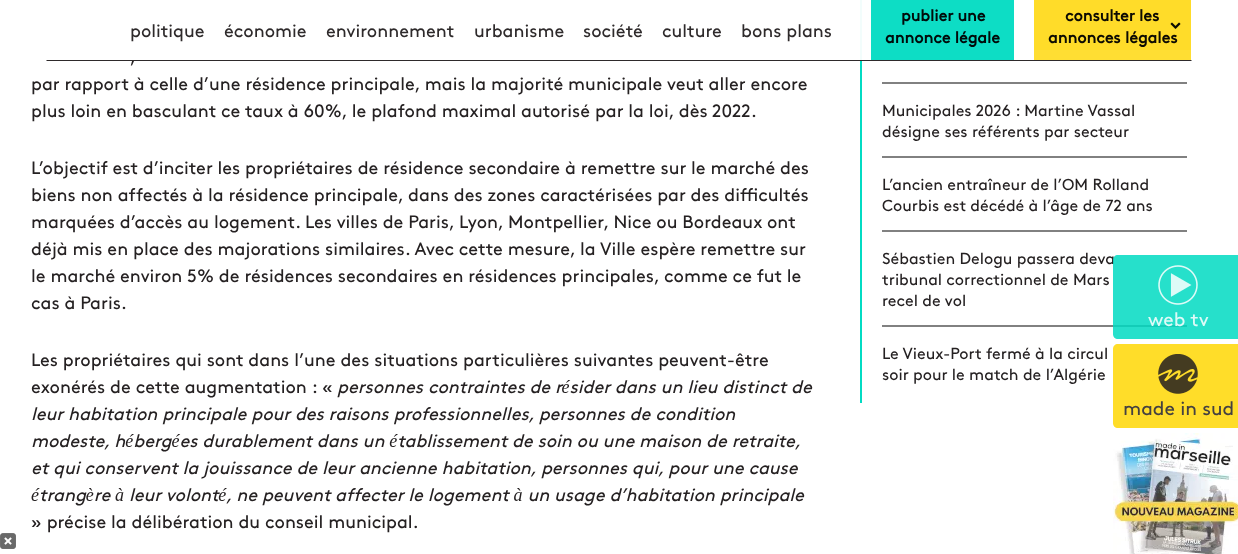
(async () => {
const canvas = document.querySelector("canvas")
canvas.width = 1238
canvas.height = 554
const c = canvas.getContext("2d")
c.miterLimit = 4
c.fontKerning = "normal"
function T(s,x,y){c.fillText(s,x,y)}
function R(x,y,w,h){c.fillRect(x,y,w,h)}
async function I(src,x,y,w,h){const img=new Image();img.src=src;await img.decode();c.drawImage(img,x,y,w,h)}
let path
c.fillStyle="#fff"
R(0,0,1238,554)
c.save()
path = new Path2D("M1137 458h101v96h-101zm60 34c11.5 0 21 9.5 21 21c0 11.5-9.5 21-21 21c-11.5 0-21-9.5-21-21c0-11.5 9.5-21 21-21z")
c.clip(path,"evenodd")
c.fillStyle="#0000004d"
c.filter="blur(12.5px)"
c.beginPath()
c.roundRect(1176,497,42,42,21)
c.fill()
c.filter="none"
c.restore()
R(1156,477,51,77)
c.font="18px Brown"
c.fillStyle="#252122"
T(",",130,63)
c.fillStyle="#03dbc3"
R(860,0,2,403)
c.fillStyle="#fffffff2"
R(131,0,731,61)
c.fillStyle="#231f20f2"
path = new Path2D("M1192 61h-1146l1-1h1144z")
c.fill(path)
c.fillStyle="#2e2a2b"
T("politique",130,37)
T("économie",224,37)
T("environnement",326,37)
T("urbanisme",474,37)
T("société",583,37)
T("culture",662,37)
T("bons plans",741,37)
c.fillStyle="#00dbc2f2"
R(871,0,143,60)
c.font="bold 16px Brown"
c.fillStyle="#010b0a"
T("publier une",901,21)
T("annonce légale",885,43)
c.fillStyle="#ffdc28f2"
R(1034,50,157,10)
c.fillStyle="#ffdc29"
R(1034,0,157,50)
c.fillStyle="#0d0b02"
T("consulter les",1065,21)
await I("1.png",1170,22,11,7)
T("annonces légales",1048,43)
c.fillStyle="#818181"
R(882,325,305,2)
c.font="16px Brown"
c.fillStyle="#252122"
T("Sébastien Delogu passera deva",882,264)
c.fillStyle="#00dbc2d9"
path = new Path2D("M1118 255h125v84h-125c-3 0-5-2-5-5v-74c0-3 2-5 5-5z")
c.fill(path)
await I("2.png",1158,265,40,40)
c.font="19.25px Brown"
c.fillStyle="#defaf7"
T("web tv",1148,326)
c.fillStyle="#ffd703d9"
path = new Path2D("M1118 344h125v84h-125c-3 0-5-2-5-5v-74c0-3 2-5 5-5z")
c.fill(path)
await I("3.png",1158,354,40,40)
c.fillStyle="#444141"
T("made in sud",1123,415)
await I("4.png",1113,433,125,121)
c.font="18px Brown"
c.fillStyle="#252122"
T("par rapport à celle d’une résidence principale, mais la majorité municipale veut aller encore",31,90)
T("plus loin en basculant ce taux à 60%, le plafond maximal autorisé par la loi, dès 2022.",31,117)
T("L’objectif est d’inciter les propriétaires de résidence secondaire à remettre sur le marché des",31,174)
T("biens non affectés à la résidence principale, dans des zones caractérisées par des difficultés",31,201)
T("marquées d’accès au logement. Les villes de Paris, Lyon, Montpellier, Nice ou Bordeaux ont",31,228)
T("déjà mis en place des majorations similaires. Avec cette mesure, la Ville espère remettre sur",31,255)
T("le marché environ 5% de résidences secondaires en résidences principales, comme ce fut le",31,282)
T("cas à Paris.",31,309)
T("Les propriétaires qui sont dans l’une des situations particulières suivantes peuvent-être",31,366)
T("exonérés de cette augmentation : «",31,393)
c.font="italic 18px Brown"
T("personnes contraintes de résider dans un lieu distinct de",337,393)
T("leur habitation principale pour des raisons professionnelles, personnes de condition",31,420)
T("modeste, hébergées durablement dans un établissement de soin ou une maison de retraite,",31,447)
T("et qui conservent la jouissance de leur ancienne habitation, personnes qui, pour une cause",31,474)
T("étrangère à leur volonté, ne peuvent affecter le logement à un usage d’habitation principale",31,501)
c.font="18px Brown"
T("» précise la délibération du conseil municipal.",31,528)
c.fillStyle="#818181"
R(882,82,305,2)
R(882,156,305,2)
c.font="16px Brown"
c.fillStyle="#252122"
T("Municipales 2026 : Martine Vassal",882,116)
T("désigne ses référents par secteur",882,137)
c.fillStyle="#818181"
R(882,230,305,2)
c.fillStyle="#252122"
T("L’ancien entraîneur de l’OM Rolland",882,190)
T("Courbis est décédé à l’âge de 72 ans",882,211)
T("tribunal correctionnel de Mars",882,285)
T("recel de vol",882,306)
T("Le Vieux-Port fermé à la circul",882,359)
T("soir pour le match de l’Algérie",882,380)
await I("5.png",0,533,16,16)
})()
